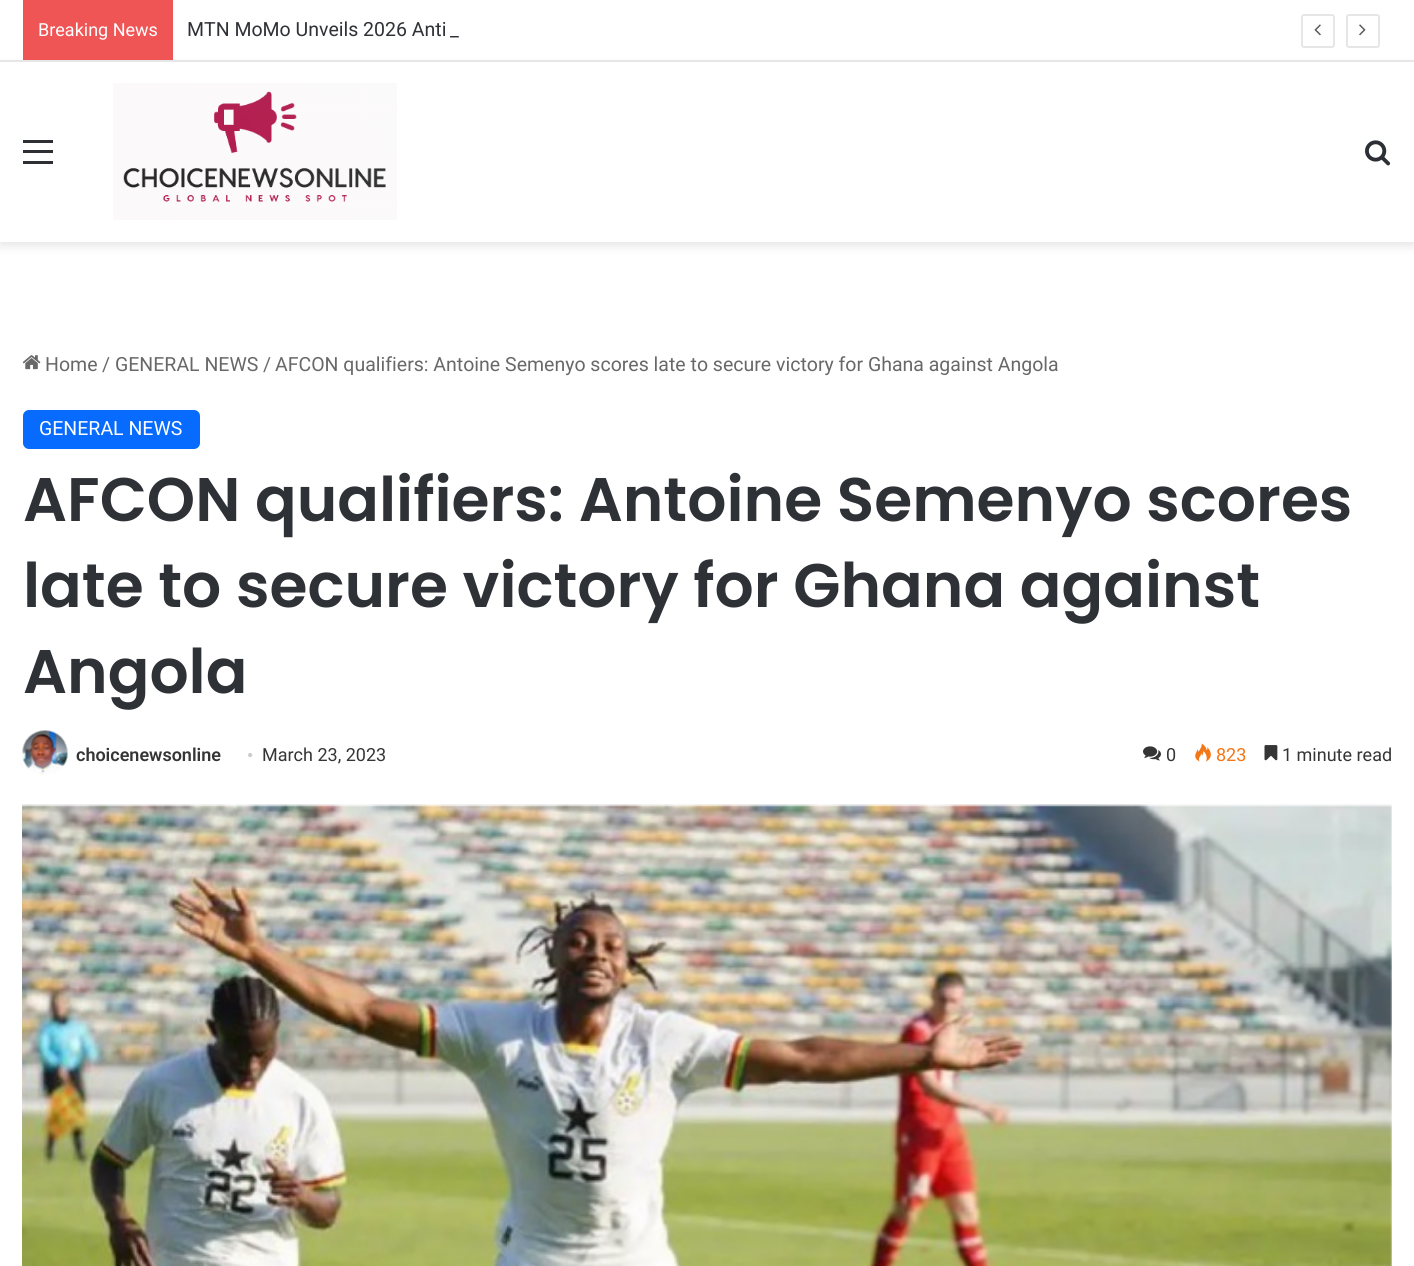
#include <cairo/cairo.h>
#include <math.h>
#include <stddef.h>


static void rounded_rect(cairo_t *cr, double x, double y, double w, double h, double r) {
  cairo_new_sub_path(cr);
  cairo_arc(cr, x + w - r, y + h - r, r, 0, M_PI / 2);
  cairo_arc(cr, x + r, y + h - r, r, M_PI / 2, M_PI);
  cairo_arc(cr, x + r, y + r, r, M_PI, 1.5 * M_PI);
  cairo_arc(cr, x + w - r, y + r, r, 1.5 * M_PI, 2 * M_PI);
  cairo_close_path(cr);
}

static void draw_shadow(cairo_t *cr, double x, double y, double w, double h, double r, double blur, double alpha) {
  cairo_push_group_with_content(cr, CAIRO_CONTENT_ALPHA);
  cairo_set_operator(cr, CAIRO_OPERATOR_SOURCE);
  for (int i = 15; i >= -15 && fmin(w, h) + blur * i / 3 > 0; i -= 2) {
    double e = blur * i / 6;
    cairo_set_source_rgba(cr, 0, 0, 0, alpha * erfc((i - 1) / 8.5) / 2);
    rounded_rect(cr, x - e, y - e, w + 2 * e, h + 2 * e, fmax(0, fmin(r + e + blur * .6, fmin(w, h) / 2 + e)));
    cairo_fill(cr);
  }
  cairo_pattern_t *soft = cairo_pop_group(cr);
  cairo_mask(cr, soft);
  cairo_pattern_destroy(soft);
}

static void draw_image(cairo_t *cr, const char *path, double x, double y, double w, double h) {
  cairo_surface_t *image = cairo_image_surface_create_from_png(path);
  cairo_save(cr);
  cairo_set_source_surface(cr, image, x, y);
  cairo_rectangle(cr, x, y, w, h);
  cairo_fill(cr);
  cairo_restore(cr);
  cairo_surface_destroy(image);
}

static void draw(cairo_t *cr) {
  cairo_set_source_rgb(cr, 1, 1, 1);
  cairo_paint(cr);
  cairo_set_source_rgb(cr, 0, 0, 0);
  draw_shadow(cr, 0, 66, 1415, 180, 0, 5, 0.1);
  cairo_set_source_rgb(cr, 230 / 255.0, 230 / 255.0, 230 / 255.0);
  cairo_rectangle(cr, 0, 60, 1414, 2);
  cairo_fill(cr);
  cairo_set_source_rgb(cr, 240 / 255.0, 85 / 255.0, 85 / 255.0);
  cairo_rectangle(cr, 23, 0, 150, 60);
  cairo_fill(cr);
  rounded_rect(cr, 1302, 15, 32, 32, 2);
  cairo_set_source_rgb(cr, 230 / 255.0, 230 / 255.0, 230 / 255.0);
  cairo_stroke(cr);
  draw_image(cr, "images/1.png", 1314, 24, 7, 12);
  rounded_rect(cr, 1347, 15, 32, 32, 2);
  cairo_stroke(cr);
  draw_image(cr, "images/2.png", 1359, 24, 7, 12);
  cairo_set_source_rgb(cr, 1, 1, 1);
  cairo_rectangle(cr, 0, 62, 1414, 180);
  cairo_fill(cr);
  cairo_set_source_rgb(cr, 44 / 255.0, 47 / 255.0, 52 / 255.0);
  cairo_rectangle(cr, 23, 150, 30, 3);
  cairo_fill(cr);
  cairo_rectangle(cr, 23, 140, 30, 3);
  cairo_fill(cr);
  cairo_rectangle(cr, 23, 161, 30, 3);
  cairo_fill(cr);
  draw_image(cr, "images/3.png", 113, 83, 284, 137);
  draw_image(cr, "images/4.png", 1365, 140, 26, 26);
  draw_image(cr, "images/5.png", 22, 355, 19, 15);
  cairo_set_source_rgb(cr, 8 / 255.0, 107 / 255.0, 1);
  rounded_rect(cr, 23, 410, 177, 39, 6);
  cairo_fill(cr);
  draw_image(cr, "images/6.png", 22, 730, 46, 46);
  draw_image(cr, "images/7.png", 1143, 746, 18, 15);
  draw_image(cr, "images/8.png", 1195, 743, 16, 19);
  draw_image(cr, "images/9.png", 1264, 745, 14, 16);
  draw_image(cr, "images/10.png", 22, 804, 1370, 462);
  cairo_select_font_face(cr, "Roboto", CAIRO_FONT_SLANT_NORMAL, CAIRO_FONT_WEIGHT_NORMAL);
  cairo_set_font_size(cr, 18);
  cairo_set_source_rgb(cr, 1, 1, 1);
  cairo_move_to(cr, 38, 36);
  cairo_show_text(cr, "Breaking News");
  cairo_set_font_size(cr, 19.5);
  cairo_set_source_rgb(cr, 46 / 255.0, 49 / 255.0, 54 / 255.0);
  cairo_move_to(cr, 187, 36);
  cairo_show_text(cr, "MTN MoMo Unveils 2026 Anti");
  cairo_move_to(cr, 450, 36);
  cairo_show_text(cr, "_");
  cairo_set_source_rgb(cr, 104 / 255.0, 104 / 255.0, 104 / 255.0);
  cairo_move_to(cr, 45, 371);
  cairo_show_text(cr, "Home");
  cairo_move_to(cr, 102, 371);
  cairo_show_text(cr, "/");
  cairo_move_to(cr, 115, 371);
  cairo_show_text(cr, "GENERAL NEWS");
  cairo_move_to(cr, 263, 371);
  cairo_show_text(cr, "/");
  cairo_move_to(cr, 275, 371);
  cairo_show_text(cr, "AFCON qualifiers: Antoine Semenyo scores late to secure victory for Ghana against Angola");
  cairo_set_source_rgb(cr, 1, 1, 1);
  cairo_move_to(cr, 39, 435);
  cairo_show_text(cr, "GENERAL NEWS");
  cairo_select_font_face(cr, "Poppins SemiBold", CAIRO_FONT_SLANT_NORMAL, CAIRO_FONT_WEIGHT_NORMAL);
  cairo_set_font_size(cr, 61.5);
  cairo_set_source_rgb(cr, 46 / 255.0, 49 / 255.0, 54 / 255.0);
  cairo_move_to(cr, 23, 521);
  cairo_show_text(cr, "AFCON qualifiers: Antoine Semenyo scores");
  cairo_move_to(cr, 23, 607);
  cairo_show_text(cr, "late to secure victory for Ghana against");
  cairo_move_to(cr, 23, 693);
  cairo_show_text(cr, "Angola");
  cairo_select_font_face(cr, "Roboto SemiBold", CAIRO_FONT_SLANT_NORMAL, CAIRO_FONT_WEIGHT_NORMAL);
  cairo_set_font_size(cr, 18);
  cairo_set_source_rgb(cr, 53 / 255.0, 53 / 255.0, 53 / 255.0);
  cairo_move_to(cr, 76, 761);
  cairo_show_text(cr, "choicenewsonline");
  cairo_select_font_face(cr, "Liberation Serif", CAIRO_FONT_SLANT_NORMAL, CAIRO_FONT_WEIGHT_NORMAL);
  cairo_set_source_rgb(cr, 205 / 255.0, 205 / 255.0, 205 / 255.0);
  cairo_move_to(cr, 247, 761);
  cairo_show_text(cr, "•");
  cairo_select_font_face(cr, "Roboto", CAIRO_FONT_SLANT_NORMAL, CAIRO_FONT_WEIGHT_NORMAL);
  cairo_set_source_rgb(cr, 53 / 255.0, 53 / 255.0, 53 / 255.0);
  cairo_move_to(cr, 262, 761);
  cairo_show_text(cr, "March 23, 2023");
  cairo_move_to(cr, 1166, 761);
  cairo_show_text(cr, "0");
  cairo_set_source_rgb(cr, 244 / 255.0, 118 / 255.0, 20 / 255.0);
  cairo_move_to(cr, 1216, 761);
  cairo_show_text(cr, "823");
  cairo_set_source_rgb(cr, 53 / 255.0, 53 / 255.0, 53 / 255.0);
  cairo_move_to(cr, 1282, 761);
  cairo_show_text(cr, "1 minute read");
}

int main(void) {
  cairo_surface_t *surface = cairo_image_surface_create(CAIRO_FORMAT_RGB24, 1414, 1266);
  cairo_t *cr = cairo_create(surface);
  cairo_font_options_t *options = cairo_font_options_create();
  cairo_font_options_set_hint_metrics(options, CAIRO_HINT_METRICS_OFF);
  cairo_font_options_set_hint_style(options, CAIRO_HINT_STYLE_NONE);
  cairo_set_font_options(cr, options);
  cairo_set_miter_limit(cr, 4);
  draw(cr);
  cairo_surface_write_to_png(surface, "out.png");
  cairo_font_options_destroy(options);
  cairo_destroy(cr);
  cairo_surface_destroy(surface);
  return 0;
}
